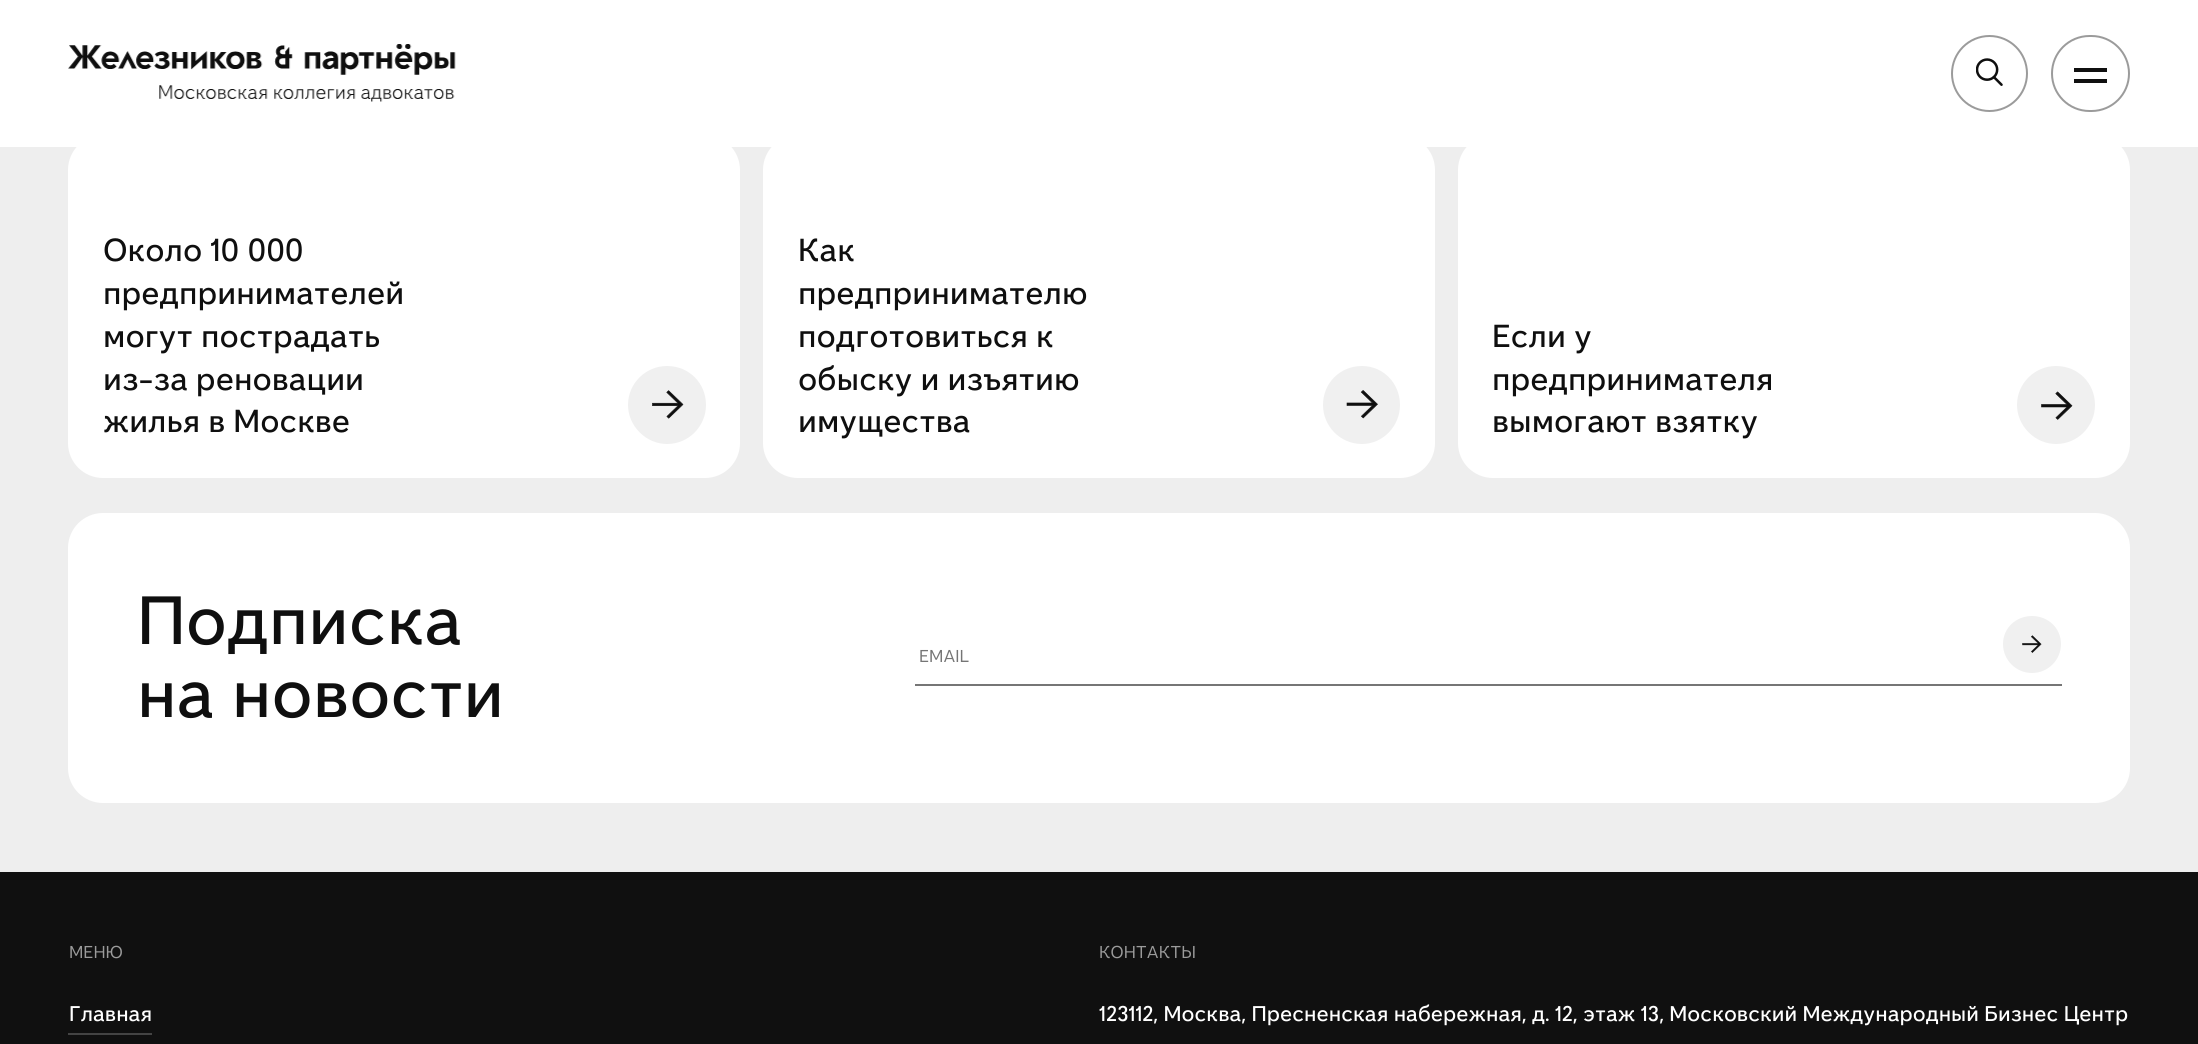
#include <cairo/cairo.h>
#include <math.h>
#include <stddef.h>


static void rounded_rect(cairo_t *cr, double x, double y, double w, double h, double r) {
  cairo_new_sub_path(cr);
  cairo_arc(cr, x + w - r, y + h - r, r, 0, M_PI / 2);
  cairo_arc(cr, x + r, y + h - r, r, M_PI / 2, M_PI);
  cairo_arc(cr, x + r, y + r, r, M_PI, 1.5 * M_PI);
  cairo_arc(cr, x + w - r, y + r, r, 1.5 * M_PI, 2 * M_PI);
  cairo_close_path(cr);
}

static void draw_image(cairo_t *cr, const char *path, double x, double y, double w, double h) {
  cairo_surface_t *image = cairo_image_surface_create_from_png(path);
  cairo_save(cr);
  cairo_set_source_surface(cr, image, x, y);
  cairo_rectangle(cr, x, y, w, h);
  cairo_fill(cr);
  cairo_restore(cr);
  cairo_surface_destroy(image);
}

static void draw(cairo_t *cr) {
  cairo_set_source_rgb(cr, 238 / 255.0, 238 / 255.0, 238 / 255.0);
  cairo_paint(cr);
  cairo_set_source_rgb(cr, 1, 1, 1);
  rounded_rect(cr, 68, 135, 672, 343, 35);
  cairo_fill(cr);
  rounded_rect(cr, 763, 135, 672, 343, 35);
  cairo_fill(cr);
  rounded_rect(cr, 1458, 135, 672, 343, 35);
  cairo_fill(cr);
  cairo_rectangle(cr, 0, 0, 2198, 147);
  cairo_fill(cr);
  draw_image(cr, "images/1.png", 68, 44, 388, 58);
  cairo_arc(cr, 1989.5, 73.5, 37.5, 0, 2 * M_PI);
  cairo_set_source_rgb(cr, 155 / 255.0, 155 / 255.0, 155 / 255.0);
  cairo_stroke(cr);
  draw_image(cr, "images/2.png", 1976, 58, 27, 28);
  rounded_rect(cr, 2052, 36, 77, 75, 37.5);
  cairo_stroke(cr);
  cairo_set_source_rgb(cr, 16 / 255.0, 16 / 255.0, 16 / 255.0);
  cairo_rectangle(cr, 2074, 68, 33, 4);
  cairo_fill(cr);
  cairo_rectangle(cr, 2074, 79, 33, 4);
  cairo_fill(cr);
  cairo_set_source_rgb(cr, 240 / 255.0, 240 / 255.0, 240 / 255.0);
  cairo_new_path(cr);
  cairo_move_to(cr, 628, 405);
  cairo_curve_to(cr, 628, 383, 646, 366, 667, 366);
  cairo_curve_to(cr, 689, 366, 706, 383, 706, 405);
  cairo_curve_to(cr, 706, 426, 689, 444, 667, 444);
  cairo_curve_to(cr, 646, 444, 628, 426, 628, 405);
  cairo_close_path(cr);
  cairo_fill(cr);
  draw_image(cr, "images/3.png", 652, 390, 32, 29);
  cairo_new_path(cr);
  cairo_move_to(cr, 1323, 405);
  cairo_curve_to(cr, 1323, 383, 1340, 366, 1362, 366);
  cairo_curve_to(cr, 1383, 366, 1400, 383, 1400, 405);
  cairo_curve_to(cr, 1400, 426, 1383, 444, 1362, 444);
  cairo_curve_to(cr, 1340, 444, 1323, 426, 1323, 405);
  cairo_close_path(cr);
  cairo_fill(cr);
  draw_image(cr, "images/4.png", 1346, 390, 32, 29);
  cairo_new_path(cr);
  cairo_move_to(cr, 2017, 405);
  cairo_curve_to(cr, 2017, 383, 2035, 366, 2056, 366);
  cairo_curve_to(cr, 2078, 366, 2095, 383, 2095, 405);
  cairo_curve_to(cr, 2095, 426, 2078, 444, 2056, 444);
  cairo_curve_to(cr, 2035, 444, 2017, 426, 2017, 405);
  cairo_close_path(cr);
  cairo_fill(cr);
  draw_image(cr, "images/5.png", 2041, 391, 32, 29);
  cairo_set_source_rgb(cr, 1, 1, 1);
  rounded_rect(cr, 68, 513, 2062, 290, 35);
  cairo_fill(cr);
  cairo_set_source_rgb(cr, 118 / 255.0, 118 / 255.0, 118 / 255.0);
  cairo_rectangle(cr, 915, 684, 1147, 2);
  cairo_fill(cr);
  cairo_set_source_rgb(cr, 240 / 255.0, 240 / 255.0, 240 / 255.0);
  cairo_new_path(cr);
  cairo_move_to(cr, 2003, 644);
  cairo_curve_to(cr, 2003, 628, 2016, 616, 2032, 616);
  cairo_curve_to(cr, 2048, 616, 2061, 628, 2061, 644);
  cairo_curve_to(cr, 2061, 660, 2048, 673, 2032, 673);
  cairo_curve_to(cr, 2016, 673, 2003, 660, 2003, 644);
  cairo_close_path(cr);
  cairo_fill(cr);
  draw_image(cr, "images/6.png", 2022, 635, 20, 18);
  cairo_set_source_rgb(cr, 16 / 255.0, 16 / 255.0, 16 / 255.0);
  cairo_rectangle(cr, 0, 872, 2198, 172);
  cairo_fill(cr);
  cairo_set_source_rgb(cr, 68 / 255.0, 68 / 255.0, 68 / 255.0);
  cairo_rectangle(cr, 68, 1033, 84, 2);
  cairo_fill(cr);
  cairo_select_font_face(cr, "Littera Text", CAIRO_FONT_SLANT_NORMAL, CAIRO_FONT_WEIGHT_NORMAL);
  cairo_set_font_size(cr, 34.25);
  cairo_set_source_rgb(cr, 15 / 255.0, 15 / 255.0, 15 / 255.0);
  cairo_move_to(cr, 103, 261);
  cairo_show_text(cr, "Около 10 000");
  cairo_move_to(cr, 103, 304);
  cairo_show_text(cr, "предпринимателей");
  cairo_move_to(cr, 103, 347);
  cairo_show_text(cr, "могут пострадать");
  cairo_move_to(cr, 103, 390);
  cairo_show_text(cr, "из-за реновации");
  cairo_move_to(cr, 103, 432);
  cairo_show_text(cr, "жилья в Москве");
  cairo_move_to(cr, 798, 261);
  cairo_show_text(cr, "Как");
  cairo_move_to(cr, 798, 304);
  cairo_show_text(cr, "предпринимателю");
  cairo_move_to(cr, 798, 347);
  cairo_show_text(cr, "подготовиться к");
  cairo_move_to(cr, 798, 390);
  cairo_show_text(cr, "обыску и изъятию");
  cairo_move_to(cr, 798, 432);
  cairo_show_text(cr, "имущества");
  cairo_move_to(cr, 1492, 347);
  cairo_show_text(cr, "Если у");
  cairo_move_to(cr, 1492, 390);
  cairo_show_text(cr, "предпринимателя");
  cairo_move_to(cr, 1492, 432);
  cairo_show_text(cr, "вымогают взятку");
  cairo_set_font_size(cr, 73.25);
  cairo_move_to(cr, 137, 644);
  cairo_show_text(cr, "Подписка");
  cairo_move_to(cr, 137, 717);
  cairo_show_text(cr, "на новости");
  cairo_select_font_face(cr, "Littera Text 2", CAIRO_FONT_SLANT_NORMAL, CAIRO_FONT_WEIGHT_NORMAL);
  cairo_set_font_size(cr, 18.5);
  cairo_set_source_rgb(cr, 117 / 255.0, 117 / 255.0, 117 / 255.0);
  cairo_move_to(cr, 919, 662);
  cairo_show_text(cr, "EMAIL");
  cairo_set_source_rgb(cr, 155 / 255.0, 155 / 255.0, 155 / 255.0);
  cairo_move_to(cr, 69, 958);
  cairo_show_text(cr, "МЕНЮ");
  cairo_select_font_face(cr, "Littera Text", CAIRO_FONT_SLANT_NORMAL, CAIRO_FONT_WEIGHT_NORMAL);
  cairo_set_font_size(cr, 22.9);
  cairo_set_source_rgb(cr, 1, 1, 1);
  cairo_move_to(cr, 69, 1021);
  cairo_show_text(cr, "Главная");
  cairo_select_font_face(cr, "Littera Text 2", CAIRO_FONT_SLANT_NORMAL, CAIRO_FONT_WEIGHT_NORMAL);
  cairo_set_font_size(cr, 18.5);
  cairo_set_source_rgb(cr, 155 / 255.0, 155 / 255.0, 155 / 255.0);
  cairo_move_to(cr, 1099, 958);
  cairo_show_text(cr, "КОНТАКТЫ");
  cairo_select_font_face(cr, "Littera Text", CAIRO_FONT_SLANT_NORMAL, CAIRO_FONT_WEIGHT_NORMAL);
  cairo_set_font_size(cr, 22.9);
  cairo_set_source_rgb(cr, 1, 1, 1);
  cairo_move_to(cr, 1099, 1021);
  cairo_show_text(cr, "123112, Моcква, Пресненская набережная, д. 12, этаж 13, Московский Международный Бизнес Центр");
}

int main(void) {
  cairo_surface_t *surface = cairo_image_surface_create(CAIRO_FORMAT_RGB24, 2198, 1044);
  cairo_t *cr = cairo_create(surface);
  cairo_font_options_t *options = cairo_font_options_create();
  cairo_font_options_set_hint_metrics(options, CAIRO_HINT_METRICS_OFF);
  cairo_font_options_set_hint_style(options, CAIRO_HINT_STYLE_NONE);
  cairo_set_font_options(cr, options);
  cairo_set_miter_limit(cr, 4);
  draw(cr);
  cairo_surface_write_to_png(surface, "out.png");
  cairo_font_options_destroy(options);
  cairo_destroy(cr);
  cairo_surface_destroy(surface);
  return 0;
}
